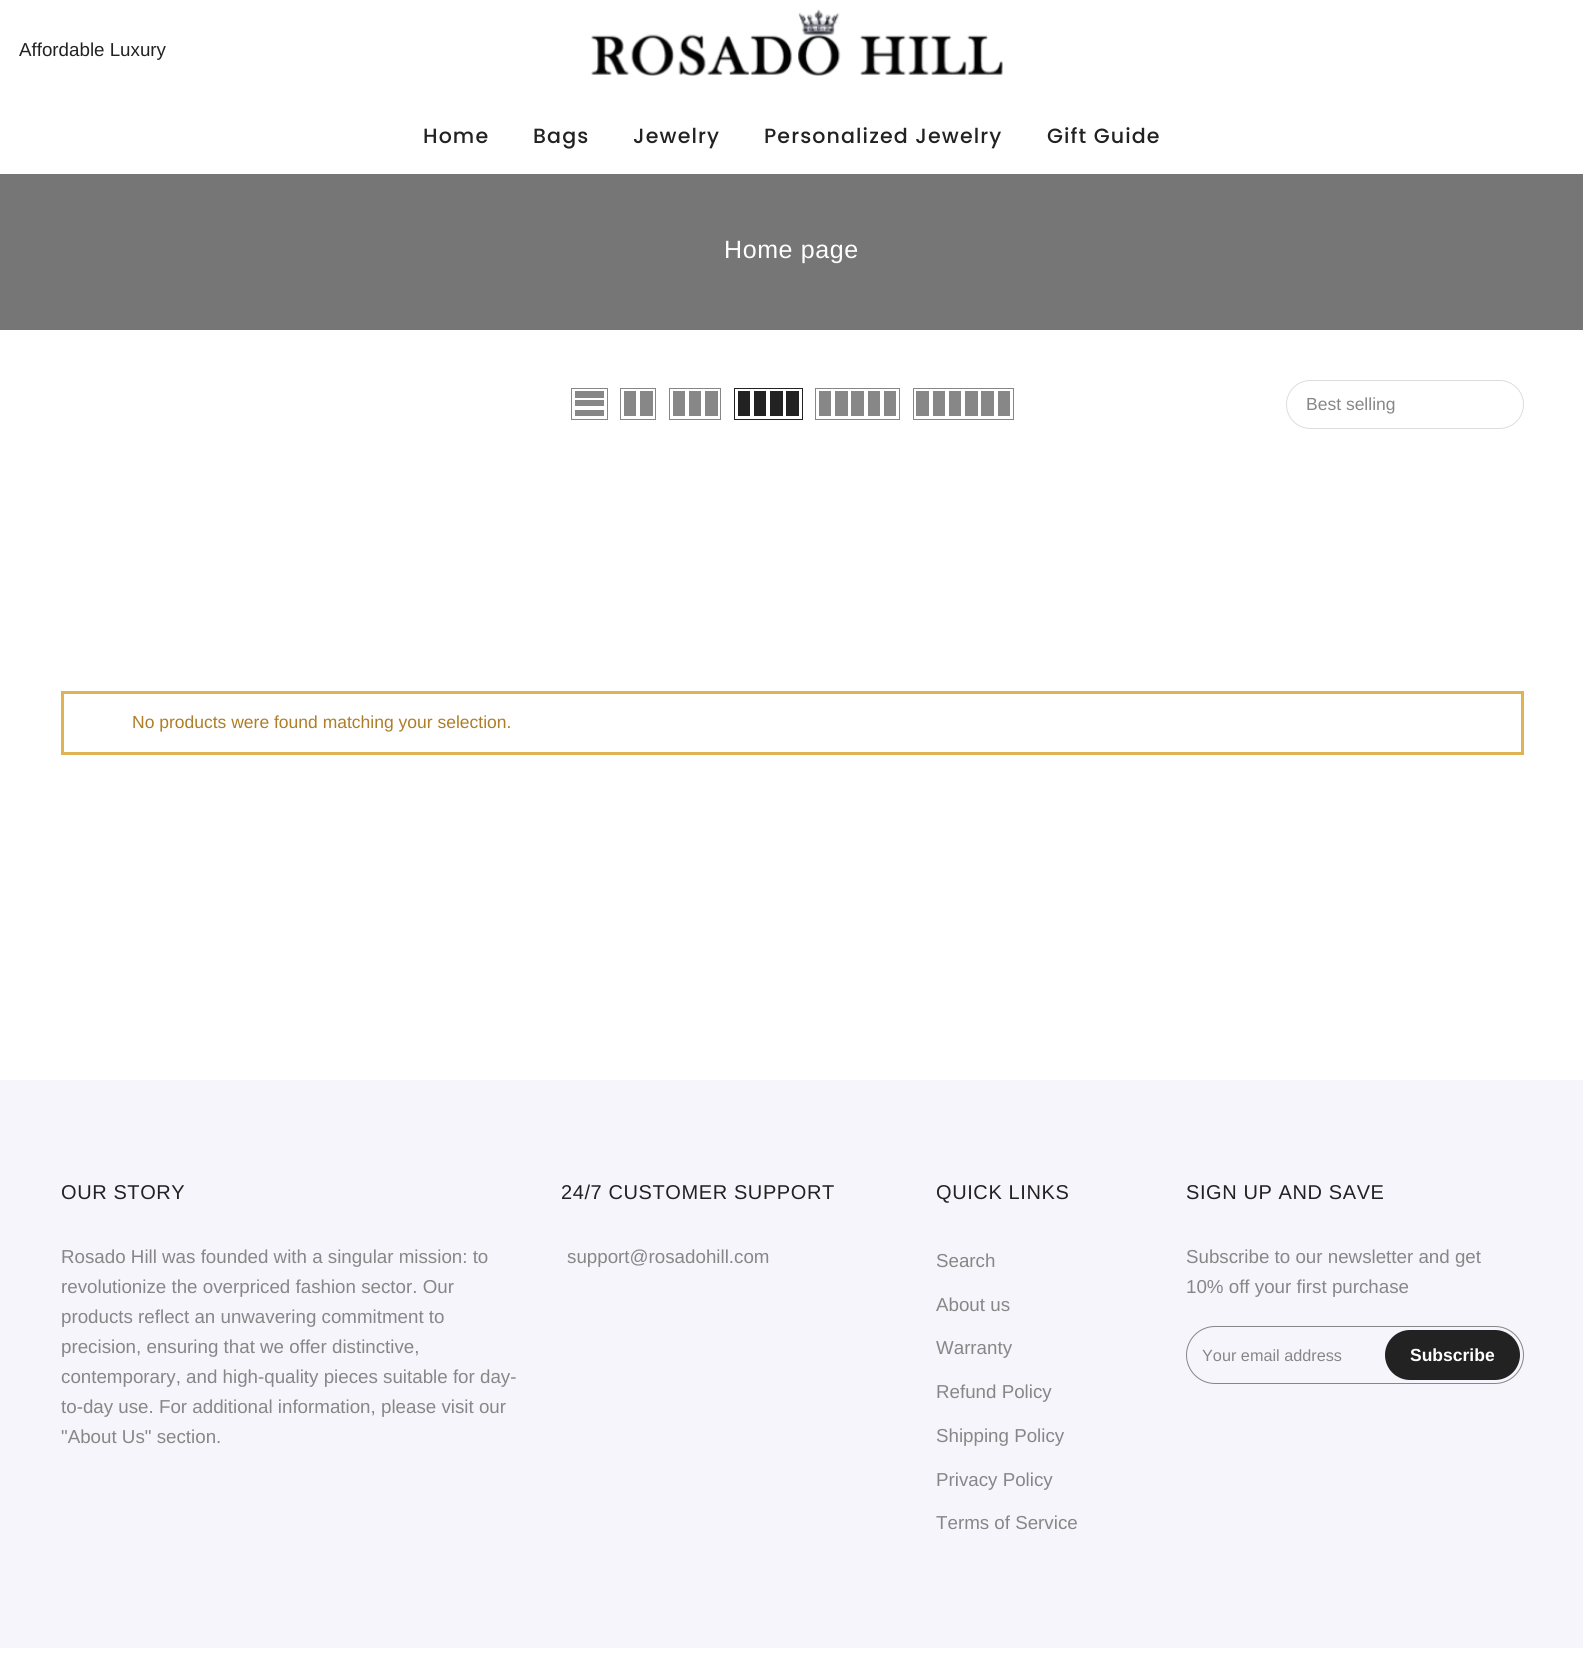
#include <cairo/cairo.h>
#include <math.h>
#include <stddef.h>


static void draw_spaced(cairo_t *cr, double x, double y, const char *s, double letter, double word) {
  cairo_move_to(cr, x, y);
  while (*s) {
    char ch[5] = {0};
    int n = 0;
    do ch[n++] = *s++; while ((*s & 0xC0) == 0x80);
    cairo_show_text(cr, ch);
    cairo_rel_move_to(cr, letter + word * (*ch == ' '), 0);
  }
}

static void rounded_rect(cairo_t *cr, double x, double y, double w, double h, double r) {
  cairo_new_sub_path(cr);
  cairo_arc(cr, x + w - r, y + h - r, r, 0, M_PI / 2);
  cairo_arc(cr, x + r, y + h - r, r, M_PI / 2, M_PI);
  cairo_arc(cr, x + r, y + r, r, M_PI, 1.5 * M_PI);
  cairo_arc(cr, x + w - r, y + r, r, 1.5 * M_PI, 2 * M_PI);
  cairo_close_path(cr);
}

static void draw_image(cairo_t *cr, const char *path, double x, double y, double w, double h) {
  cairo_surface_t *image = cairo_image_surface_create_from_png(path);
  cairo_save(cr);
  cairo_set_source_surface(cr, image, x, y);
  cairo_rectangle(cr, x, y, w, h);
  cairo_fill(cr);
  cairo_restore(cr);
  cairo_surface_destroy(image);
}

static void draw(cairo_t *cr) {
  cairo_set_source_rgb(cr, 1, 1, 1);
  cairo_paint(cr);
  draw_image(cr, "images/1.png", 591, 9, 412, 67);
  cairo_set_source_rgb(cr, 118 / 255.0, 118 / 255.0, 118 / 255.0);
  cairo_rectangle(cr, 0, 174, 1583, 156);
  cairo_fill(cr);
  cairo_rectangle(cr, 571.5, 388.5, 36, 31);
  cairo_set_source_rgb(cr, 135 / 255.0, 135 / 255.0, 135 / 255.0);
  cairo_set_line_width(cr, 1);
  cairo_stroke(cr);
  cairo_rectangle(cr, 575, 410, 29, 6);
  cairo_fill(cr);
  cairo_rectangle(cr, 575, 400, 29, 6);
  cairo_fill(cr);
  cairo_rectangle(cr, 575, 391, 29, 7);
  cairo_fill(cr);
  cairo_rectangle(cr, 620.5, 388.5, 35, 31);
  cairo_stroke(cr);
  cairo_rectangle(cr, 640, 391, 13, 25);
  cairo_fill(cr);
  cairo_rectangle(cr, 624, 391, 12, 25);
  cairo_fill(cr);
  cairo_rectangle(cr, 669.5, 388.5, 51, 31);
  cairo_stroke(cr);
  cairo_rectangle(cr, 705, 391, 13, 25);
  cairo_fill(cr);
  cairo_rectangle(cr, 689, 391, 12, 25);
  cairo_fill(cr);
  cairo_rectangle(cr, 673, 391, 12, 25);
  cairo_fill(cr);
  cairo_rectangle(cr, 734.5, 388.5, 68, 31);
  cairo_set_source_rgb(cr, 34 / 255.0, 34 / 255.0, 34 / 255.0);
  cairo_stroke(cr);
  cairo_rectangle(cr, 786, 391, 13, 25);
  cairo_fill(cr);
  cairo_rectangle(cr, 770, 391, 13, 25);
  cairo_fill(cr);
  cairo_rectangle(cr, 754, 391, 12, 25);
  cairo_fill(cr);
  cairo_rectangle(cr, 738, 391, 12, 25);
  cairo_fill(cr);
  cairo_rectangle(cr, 815.5, 388.5, 84, 31);
  cairo_set_source_rgb(cr, 135 / 255.0, 135 / 255.0, 135 / 255.0);
  cairo_stroke(cr);
  cairo_rectangle(cr, 884, 391, 12, 25);
  cairo_fill(cr);
  cairo_rectangle(cr, 868, 391, 12, 25);
  cairo_fill(cr);
  cairo_rectangle(cr, 851, 391, 13, 25);
  cairo_fill(cr);
  cairo_rectangle(cr, 835, 391, 13, 25);
  cairo_fill(cr);
  cairo_rectangle(cr, 819, 391, 12, 25);
  cairo_fill(cr);
  cairo_rectangle(cr, 913.5, 388.5, 100, 31);
  cairo_stroke(cr);
  cairo_rectangle(cr, 998, 391, 12, 25);
  cairo_fill(cr);
  cairo_rectangle(cr, 981, 391, 13, 25);
  cairo_fill(cr);
  cairo_rectangle(cr, 965, 391, 13, 25);
  cairo_fill(cr);
  cairo_rectangle(cr, 949, 391, 12, 25);
  cairo_fill(cr);
  cairo_rectangle(cr, 933, 391, 12, 25);
  cairo_fill(cr);
  cairo_rectangle(cr, 916, 391, 13, 25);
  cairo_fill(cr);
  rounded_rect(cr, 1286.5, 380.5, 237, 48, 24);
  cairo_set_source_rgb(cr, 221 / 255.0, 221 / 255.0, 221 / 255.0);
  cairo_stroke(cr);
  cairo_rectangle(cr, 62.5, 692.5, 1460, 61);
  cairo_set_source_rgb(cr, 224 / 255.0, 178 / 255.0, 82 / 255.0);
  cairo_set_line_width(cr, 3);
  cairo_stroke(cr);
  cairo_set_source_rgb(cr, 245 / 255.0, 245 / 255.0, 251 / 255.0);
  cairo_rectangle(cr, 0, 1080, 1583, 568);
  cairo_fill(cr);
  rounded_rect(cr, 1186.5, 1326.5, 337, 57, 28.5);
  cairo_set_source_rgb(cr, 135 / 255.0, 135 / 255.0, 135 / 255.0);
  cairo_set_line_width(cr, 1);
  cairo_stroke(cr);
  cairo_set_source_rgb(cr, 34 / 255.0, 34 / 255.0, 34 / 255.0);
  rounded_rect(cr, 1385, 1330, 135, 50, 25);
  cairo_fill(cr);
  cairo_select_font_face(cr, "Liberation Sans", CAIRO_FONT_SLANT_NORMAL, CAIRO_FONT_WEIGHT_NORMAL);
  cairo_set_font_size(cr, 18.75);
  cairo_move_to(cr, 19, 56);
  cairo_show_text(cr, "Affordable Luxury");
  cairo_select_font_face(cr, "Poppins Medium", CAIRO_FONT_SLANT_NORMAL, CAIRO_FONT_WEIGHT_NORMAL);
  cairo_set_font_size(cr, 20.6);
  draw_spaced(cr, 423, 143, "Home", 1.1, 0);
  draw_spaced(cr, 533, 143, "Bags", 1.1, 0);
  draw_spaced(cr, 633, 143, "Jewelry", 1.1, 0);
  draw_spaced(cr, 764, 143, "Personalized Jewelry", 1.1, 0);
  draw_spaced(cr, 1047, 143, "Gift Guide", 1.1, 0);
  cairo_select_font_face(cr, "Liberation Sans", CAIRO_FONT_SLANT_NORMAL, CAIRO_FONT_WEIGHT_NORMAL);
  cairo_set_font_size(cr, 25);
  cairo_set_source_rgb(cr, 1, 1, 1);
  draw_spaced(cr, 724, 258, "Home page", 0.6, 0);
  cairo_set_font_size(cr, 17.5);
  cairo_set_source_rgb(cr, 135 / 255.0, 135 / 255.0, 135 / 255.0);
  cairo_move_to(cr, 1306, 410);
  cairo_show_text(cr, "Best selling");
  cairo_set_source_rgb(cr, 175 / 255.0, 125 / 255.0, 39 / 255.0);
  cairo_move_to(cr, 132, 728);
  cairo_show_text(cr, "No products were found matching your selection.");
  cairo_set_font_size(cr, 20);
  cairo_set_source_rgb(cr, 34 / 255.0, 34 / 255.0, 34 / 255.0);
  draw_spaced(cr, 61, 1199, "OUR STORY", 0.6, 0);
  cairo_set_font_size(cr, 18.75);
  cairo_set_source_rgb(cr, 135 / 255.0, 135 / 255.0, 135 / 255.0);
  cairo_move_to(cr, 61, 1263);
  cairo_show_text(cr, "Rosado Hill was founded with a singular mission: to");
  cairo_move_to(cr, 61, 1293);
  cairo_show_text(cr, "revolutionize the overpriced fashion sector. Our");
  cairo_move_to(cr, 61, 1323);
  cairo_show_text(cr, "products reflect an unwavering commitment to");
  cairo_move_to(cr, 61, 1353);
  cairo_show_text(cr, "precision, ensuring that we offer distinctive,");
  cairo_move_to(cr, 61, 1383);
  cairo_show_text(cr, "contemporary, and high-quality pieces suitable for day-");
  cairo_move_to(cr, 61, 1413);
  cairo_show_text(cr, "to-day use. For additional information, please visit our");
  cairo_move_to(cr, 61, 1443);
  cairo_show_text(cr, "\"About Us\" section.");
  cairo_set_font_size(cr, 20);
  cairo_set_source_rgb(cr, 34 / 255.0, 34 / 255.0, 34 / 255.0);
  draw_spaced(cr, 561, 1199, "24/7 CUSTOMER SUPPORT", 0.6, 0);
  cairo_set_font_size(cr, 18.75);
  cairo_set_source_rgb(cr, 135 / 255.0, 135 / 255.0, 135 / 255.0);
  cairo_move_to(cr, 567, 1263);
  cairo_show_text(cr, "support@rosadohill.com");
  cairo_set_font_size(cr, 20);
  cairo_set_source_rgb(cr, 34 / 255.0, 34 / 255.0, 34 / 255.0);
  draw_spaced(cr, 936, 1199, "QUICK LINKS", 0.6, 0);
  cairo_set_font_size(cr, 18.75);
  cairo_set_source_rgb(cr, 135 / 255.0, 135 / 255.0, 135 / 255.0);
  cairo_move_to(cr, 936, 1267);
  cairo_show_text(cr, "Search");
  cairo_move_to(cr, 936, 1311);
  cairo_show_text(cr, "About us");
  cairo_move_to(cr, 936, 1354);
  cairo_show_text(cr, "Warranty");
  cairo_move_to(cr, 936, 1398);
  cairo_show_text(cr, "Refund Policy");
  cairo_move_to(cr, 936, 1442);
  cairo_show_text(cr, "Shipping Policy");
  cairo_move_to(cr, 936, 1486);
  cairo_show_text(cr, "Privacy Policy");
  cairo_move_to(cr, 936, 1529);
  cairo_show_text(cr, "Terms of Service");
  cairo_set_font_size(cr, 20);
  cairo_set_source_rgb(cr, 34 / 255.0, 34 / 255.0, 34 / 255.0);
  draw_spaced(cr, 1186, 1199, "SIGN UP AND SAVE", 0.6, 0);
  cairo_set_font_size(cr, 18.75);
  cairo_set_source_rgb(cr, 135 / 255.0, 135 / 255.0, 135 / 255.0);
  cairo_move_to(cr, 1186, 1263);
  cairo_show_text(cr, "Subscribe to our newsletter and get");
  cairo_move_to(cr, 1186, 1293);
  cairo_show_text(cr, "10% off your first purchase");
  cairo_set_font_size(cr, 16.25);
  cairo_move_to(cr, 1202, 1361);
  cairo_show_text(cr, "Your email address");
  cairo_select_font_face(cr, "Liberation Sans", CAIRO_FONT_SLANT_NORMAL, CAIRO_FONT_WEIGHT_BOLD);
  cairo_set_font_size(cr, 17.5);
  cairo_set_source_rgb(cr, 1, 1, 1);
  cairo_move_to(cr, 1410, 1361);
  cairo_show_text(cr, "Subscribe");
}

int main(void) {
  cairo_surface_t *surface = cairo_image_surface_create(CAIRO_FORMAT_RGB24, 1583, 1674);
  cairo_t *cr = cairo_create(surface);
  cairo_font_options_t *options = cairo_font_options_create();
  cairo_font_options_set_hint_metrics(options, CAIRO_HINT_METRICS_OFF);
  cairo_font_options_set_hint_style(options, CAIRO_HINT_STYLE_NONE);
  cairo_set_font_options(cr, options);
  cairo_set_miter_limit(cr, 4);
  draw(cr);
  cairo_surface_write_to_png(surface, "out.png");
  cairo_font_options_destroy(options);
  cairo_destroy(cr);
  cairo_surface_destroy(surface);
  return 0;
}
